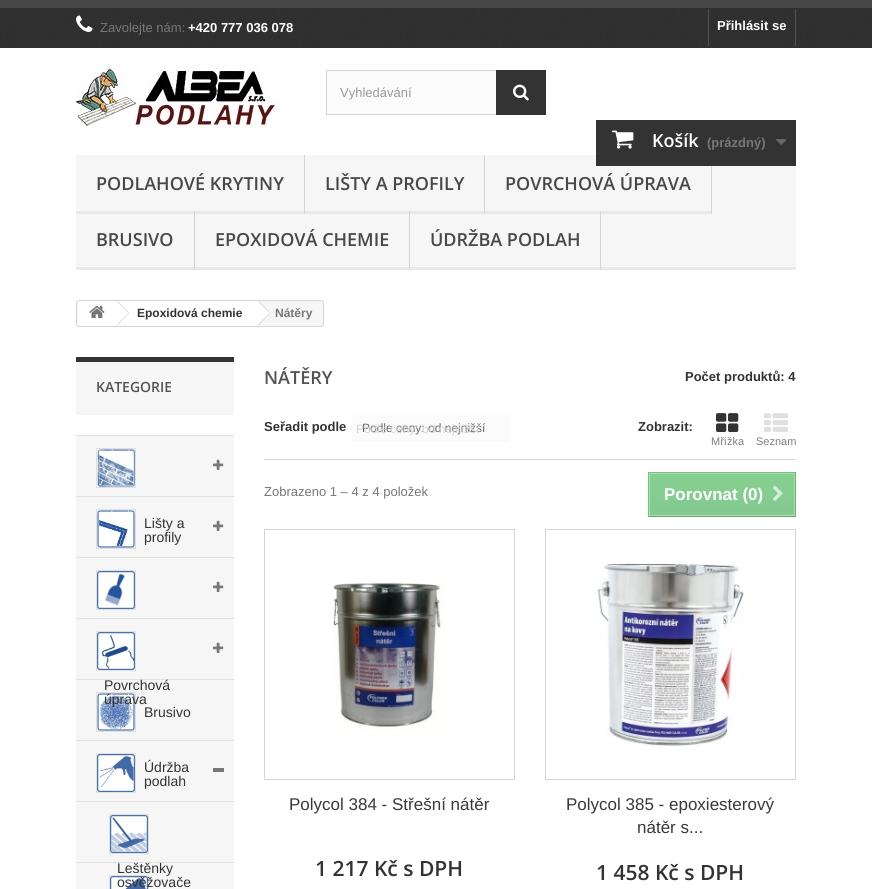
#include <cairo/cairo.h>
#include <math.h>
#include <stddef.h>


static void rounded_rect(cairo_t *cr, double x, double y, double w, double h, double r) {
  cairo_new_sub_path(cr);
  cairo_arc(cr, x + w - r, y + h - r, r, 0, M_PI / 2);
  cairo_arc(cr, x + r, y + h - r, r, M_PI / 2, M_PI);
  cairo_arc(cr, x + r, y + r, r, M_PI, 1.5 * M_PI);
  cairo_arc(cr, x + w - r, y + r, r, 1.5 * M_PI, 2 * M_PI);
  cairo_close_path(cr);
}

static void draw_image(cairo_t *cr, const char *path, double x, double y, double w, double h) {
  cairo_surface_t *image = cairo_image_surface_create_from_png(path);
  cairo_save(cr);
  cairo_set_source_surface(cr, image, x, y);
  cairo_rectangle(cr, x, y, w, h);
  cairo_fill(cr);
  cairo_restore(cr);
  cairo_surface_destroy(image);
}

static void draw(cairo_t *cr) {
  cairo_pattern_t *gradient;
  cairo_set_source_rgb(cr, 1, 1, 1);
  cairo_paint(cr);
  draw_image(cr, "images/1.png", 0, 0, 872, 48);
  draw_image(cr, "images/2.png", 76, 15, 17, 17);
  cairo_set_source_rgb(cr, 81 / 255.0, 81 / 255.0, 81 / 255.0);
  cairo_rectangle(cr, 795, 9, 1, 37);
  cairo_fill(cr);
  cairo_rectangle(cr, 708, 9, 1, 37);
  cairo_fill(cr);
  draw_image(cr, "images/3.png", 76, 65, 202, 64);
  cairo_set_source_rgb(cr, 251 / 255.0, 251 / 255.0, 251 / 255.0);
  cairo_rectangle(cr, 327, 71, 169, 43);
  cairo_fill(cr);
  cairo_rectangle(cr, 326.5, 70.5, 219, 44);
  cairo_set_source_rgb(cr, 214 / 255.0, 212 / 255.0, 212 / 255.0);
  cairo_set_line_width(cr, 1);
  cairo_stroke(cr);
  cairo_set_source_rgb(cr, 51 / 255.0, 51 / 255.0, 51 / 255.0);
  cairo_rectangle(cr, 496, 70, 50, 45);
  cairo_fill(cr);
  draw_image(cr, "images/4.png", 513, 84, 16, 17);
  cairo_set_source_rgb(cr, 246 / 255.0, 246 / 255.0, 246 / 255.0);
  cairo_rectangle(cr, 76, 155, 720, 112);
  cairo_fill(cr);
  cairo_set_source_rgb(cr, 51 / 255.0, 51 / 255.0, 51 / 255.0);
  cairo_rectangle(cr, 596, 120, 200, 46);
  cairo_fill(cr);
  draw_image(cr, "images/5.png", 612, 130, 22, 19);
  draw_image(cr, "images/6.png", 776, 139, 11, 6);
  cairo_set_source_rgb(cr, 233 / 255.0, 233 / 255.0, 233 / 255.0);
  cairo_rectangle(cr, 76, 267, 720, 3);
  cairo_fill(cr);
  cairo_set_source_rgb(cr, 214 / 255.0, 212 / 255.0, 212 / 255.0);
  cairo_rectangle(cr, 304, 155, 1, 59);
  cairo_fill(cr);
  cairo_set_source_rgb(cr, 233 / 255.0, 233 / 255.0, 233 / 255.0);
  cairo_rectangle(cr, 76, 211, 228, 3);
  cairo_fill(cr);
  cairo_set_source_rgb(cr, 214 / 255.0, 212 / 255.0, 212 / 255.0);
  cairo_rectangle(cr, 484, 155, 1, 59);
  cairo_fill(cr);
  cairo_set_source_rgb(cr, 233 / 255.0, 233 / 255.0, 233 / 255.0);
  cairo_rectangle(cr, 305, 211, 179, 3);
  cairo_fill(cr);
  cairo_set_source_rgb(cr, 214 / 255.0, 212 / 255.0, 212 / 255.0);
  cairo_rectangle(cr, 711, 166, 1, 48);
  cairo_fill(cr);
  cairo_set_source_rgb(cr, 233 / 255.0, 233 / 255.0, 233 / 255.0);
  cairo_rectangle(cr, 485, 211, 226, 3);
  cairo_fill(cr);
  cairo_set_source_rgb(cr, 214 / 255.0, 212 / 255.0, 212 / 255.0);
  cairo_rectangle(cr, 194, 211, 1, 59);
  cairo_fill(cr);
  cairo_rectangle(cr, 409, 211, 1, 59);
  cairo_fill(cr);
  cairo_rectangle(cr, 600, 211, 1, 59);
  cairo_fill(cr);
  cairo_set_source_rgb(cr, 246 / 255.0, 246 / 255.0, 246 / 255.0);
  rounded_rect(cr, 76.5, 300.5, 247, 26, 2.5);
  cairo_fill_preserve(cr);
  cairo_set_source_rgb(cr, 214 / 255.0, 212 / 255.0, 212 / 255.0);
  cairo_stroke(cr);
  cairo_set_source_rgb(cr, 1, 1, 1);
  cairo_new_path(cr);
  cairo_move_to(cr, 81, 301);
  cairo_line_to(cr, 116, 301);
  cairo_line_to(cr, 116, 326);
  cairo_line_to(cr, 81, 326);
  cairo_curve_to(cr, 79.5, 326, 78, 324.5, 78, 323);
  cairo_line_to(cr, 78, 304);
  cairo_curve_to(cr, 78, 302.5, 79.5, 301, 81, 301);
  cairo_close_path(cr);
  cairo_fill(cr);
  draw_image(cr, "images/7.png", 89, 305, 16, 13);
  cairo_rectangle(cr, 116, 301, 141, 24);
  cairo_fill(cr);
  cairo_set_source_rgb(cr, 214 / 255.0, 212 / 255.0, 212 / 255.0);
  cairo_new_path(cr);
  cairo_move_to(cr, 117.5, 301);
  cairo_line_to(cr, 129, 312.5);
  cairo_line_to(cr, 128.5, 313);
  cairo_line_to(cr, 117, 301.5);
  cairo_close_path(cr);
  cairo_move_to(cr, 128.5, 313);
  cairo_line_to(cr, 129, 313.5);
  cairo_line_to(cr, 117.5, 325);
  cairo_line_to(cr, 117, 324.5);
  cairo_close_path(cr);
  cairo_fill(cr);
  cairo_set_source_rgb(cr, 1, 1, 1);
  cairo_new_path(cr);
  cairo_move_to(cr, 259.5, 301.5);
  cairo_line_to(cr, 269.5, 311.5);
  cairo_curve_to(cr, 270, 312.5, 270, 313.5, 269.5, 314.5);
  cairo_line_to(cr, 259.5, 324.5);
  cairo_curve_to(cr, 258.5, 325, 257.5, 325, 256.5, 324.5);
  cairo_line_to(cr, 246.5, 314.5);
  cairo_curve_to(cr, 246, 313.5, 246, 312.5, 246.5, 311.5);
  cairo_line_to(cr, 256.5, 301.5);
  cairo_curve_to(cr, 257.5, 301, 258.5, 301, 259.5, 301.5);
  cairo_close_path(cr);
  cairo_fill(cr);
  cairo_set_source_rgb(cr, 214 / 255.0, 212 / 255.0, 212 / 255.0);
  cairo_new_path(cr);
  cairo_move_to(cr, 259, 301);
  cairo_line_to(cr, 270, 312.5);
  cairo_line_to(cr, 269.5, 313);
  cairo_line_to(cr, 258, 301.5);
  cairo_close_path(cr);
  cairo_move_to(cr, 269.5, 313);
  cairo_line_to(cr, 270, 313.5);
  cairo_line_to(cr, 259, 325);
  cairo_line_to(cr, 258, 324.5);
  cairo_close_path(cr);
  cairo_fill(cr);
  cairo_set_source_rgb(cr, 246 / 255.0, 246 / 255.0, 246 / 255.0);
  cairo_rectangle(cr, 76, 362, 158, 53);
  cairo_fill(cr);
  cairo_set_source_rgb(cr, 51 / 255.0, 51 / 255.0, 51 / 255.0);
  cairo_rectangle(cr, 76, 357, 158, 5);
  cairo_fill(cr);
  cairo_set_source_rgb(cr, 245 / 255.0, 246 / 255.0, 245 / 255.0);
  cairo_rectangle(cr, 76, 436, 158, 60);
  cairo_fill(cr);
  cairo_set_source_rgb(cr, 224 / 255.0, 224 / 255.0, 224 / 255.0);
  cairo_rectangle(cr, 76, 435, 158, 1);
  cairo_fill(cr);
  cairo_rectangle(cr, 96.5, 448.5, 39, 39);
  cairo_stroke(cr);
  draw_image(cr, "images/8.png", 97, 449, 38, 38);
  draw_image(cr, "images/9.png", 213, 459, 11, 11);
  cairo_set_source_rgb(cr, 245 / 255.0, 246 / 255.0, 245 / 255.0);
  cairo_rectangle(cr, 76, 497, 158, 60);
  cairo_fill(cr);
  cairo_set_source_rgb(cr, 224 / 255.0, 224 / 255.0, 224 / 255.0);
  cairo_rectangle(cr, 76, 496, 158, 1);
  cairo_fill(cr);
  cairo_rectangle(cr, 96.5, 509.5, 39, 39);
  cairo_stroke(cr);
  draw_image(cr, "images/10.png", 97, 510, 38, 38);
  draw_image(cr, "images/9.png", 213, 520, 11, 11);
  cairo_set_source_rgb(cr, 245 / 255.0, 246 / 255.0, 245 / 255.0);
  cairo_rectangle(cr, 76, 558, 158, 60);
  cairo_fill(cr);
  cairo_set_source_rgb(cr, 224 / 255.0, 224 / 255.0, 224 / 255.0);
  cairo_rectangle(cr, 76, 557, 158, 1);
  cairo_fill(cr);
  cairo_rectangle(cr, 96.5, 570.5, 39, 39);
  cairo_stroke(cr);
  draw_image(cr, "images/11.png", 97, 571, 38, 38);
  draw_image(cr, "images/9.png", 213, 581, 11, 11);
  cairo_set_source_rgb(cr, 245 / 255.0, 246 / 255.0, 245 / 255.0);
  cairo_rectangle(cr, 76, 619, 158, 60);
  cairo_fill(cr);
  cairo_set_source_rgb(cr, 224 / 255.0, 224 / 255.0, 224 / 255.0);
  cairo_rectangle(cr, 76, 618, 158, 1);
  cairo_fill(cr);
  draw_image(cr, "images/9.png", 213, 642, 11, 11);
  cairo_rectangle(cr, 96.5, 631.5, 39, 39);
  cairo_stroke(cr);
  draw_image(cr, "images/12.png", 97, 632, 38, 38);
  cairo_set_source_rgb(cr, 245 / 255.0, 246 / 255.0, 245 / 255.0);
  cairo_rectangle(cr, 76, 680, 158, 60);
  cairo_fill(cr);
  cairo_set_source_rgb(cr, 224 / 255.0, 224 / 255.0, 224 / 255.0);
  cairo_rectangle(cr, 76, 679, 158, 1);
  cairo_fill(cr);
  cairo_rectangle(cr, 96.5, 692.5, 39, 39);
  cairo_stroke(cr);
  draw_image(cr, "images/13.png", 97, 693, 38, 38);
  cairo_set_source_rgb(cr, 245 / 255.0, 246 / 255.0, 245 / 255.0);
  cairo_rectangle(cr, 76, 741, 158, 148);
  cairo_fill(cr);
  cairo_set_source_rgb(cr, 224 / 255.0, 224 / 255.0, 224 / 255.0);
  cairo_rectangle(cr, 76, 740, 158, 1);
  cairo_fill(cr);
  cairo_rectangle(cr, 96.5, 753.5, 39, 39);
  cairo_stroke(cr);
  draw_image(cr, "images/14.png", 97, 754, 38, 38);
  cairo_set_source_rgb(cr, 119 / 255.0, 119 / 255.0, 119 / 255.0);
  cairo_rectangle(cr, 213, 768, 11, 4);
  cairo_fill(cr);
  cairo_set_source_rgb(cr, 224 / 255.0, 224 / 255.0, 224 / 255.0);
  cairo_rectangle(cr, 76, 862, 158, 1);
  cairo_fill(cr);
  cairo_rectangle(cr, 109.5, 875.5, 39, 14);
  cairo_stroke(cr);
  draw_image(cr, "images/15.png", 110, 876, 38, 13);
  cairo_rectangle(cr, 76, 801, 158, 1);
  cairo_fill(cr);
  cairo_rectangle(cr, 109.5, 814.5, 39, 39);
  cairo_stroke(cr);
  draw_image(cr, "images/16.png", 110, 815, 38, 38);
  cairo_set_source_rgb(cr, 214 / 255.0, 212 / 255.0, 212 / 255.0);
  cairo_rectangle(cr, 264, 459, 532, 1);
  cairo_fill(cr);
  cairo_set_source_rgb(cr, 251 / 255.0, 251 / 255.0, 251 / 255.0);
  cairo_rectangle(cr, 352, 415, 158, 27);
  cairo_fill(cr);
  draw_image(cr, "images/17.png", 716, 413, 23, 19);
  draw_image(cr, "images/18.png", 764, 413, 24, 19);
  gradient = cairo_pattern_create_linear(722, 473, 722, 516);
  cairo_pattern_add_color_stop_rgba(gradient, 0, 133 / 255.0, 208 / 255.0, 144 / 255.0, 1);
  cairo_pattern_add_color_stop_rgba(gradient, 1, 132 / 255.0, 201 / 255.0, 143 / 255.0, 1);
  cairo_set_source(cr, gradient);
  cairo_pattern_destroy(gradient);
  cairo_rectangle(cr, 650, 474, 144, 41);
  cairo_fill(cr);
  cairo_set_source_rgb(cr, 126 / 255.0, 189 / 255.0, 137 / 255.0);
  cairo_rectangle(cr, 648, 472, 148, 1);
  cairo_fill(cr);
  cairo_set_source_rgb(cr, 113 / 255.0, 172 / 255.0, 122 / 255.0);
  cairo_rectangle(cr, 795, 472, 1, 45);
  cairo_fill(cr);
  cairo_set_source_rgb(cr, 106 / 255.0, 160 / 255.0, 115 / 255.0);
  cairo_rectangle(cr, 648, 516, 148, 1);
  cairo_fill(cr);
  cairo_set_source_rgb(cr, 126 / 255.0, 189 / 255.0, 137 / 255.0);
  cairo_rectangle(cr, 648, 472, 1, 45);
  cairo_fill(cr);
  cairo_rectangle(cr, 649.5, 473.5, 145, 42);
  cairo_set_source_rgb(cr, 165 / 255.0, 228 / 255.0, 167 / 255.0);
  cairo_stroke(cr);
  draw_image(cr, "images/19.png", 773, 485, 10, 16);
  cairo_rectangle(cr, 264.5, 529.5, 250, 250);
  cairo_set_source_rgb(cr, 214 / 255.0, 212 / 255.0, 212 / 255.0);
  cairo_stroke(cr);
  draw_image(cr, "images/20.png", 333, 582, 111, 149);
  cairo_rectangle(cr, 545.5, 529.5, 250, 250);
  cairo_stroke(cr);
  draw_image(cr, "images/21.png", 597, 561, 147, 185);
  cairo_select_font_face(cr, "Liberation Sans", CAIRO_FONT_SLANT_NORMAL, CAIRO_FONT_WEIGHT_NORMAL);
  cairo_set_font_size(cr, 13);
  cairo_set_source_rgb(cr, 119 / 255.0, 119 / 255.0, 119 / 255.0);
  cairo_move_to(cr, 100, 32);
  cairo_show_text(cr, "Zavolejte nám:");
  cairo_select_font_face(cr, "Liberation Sans", CAIRO_FONT_SLANT_NORMAL, CAIRO_FONT_WEIGHT_BOLD);
  cairo_set_source_rgb(cr, 1, 1, 1);
  cairo_move_to(cr, 188, 32);
  cairo_show_text(cr, "+420 777 036 078");
  cairo_move_to(cr, 717, 30);
  cairo_show_text(cr, "Přihlásit se");
  cairo_select_font_face(cr, "Liberation Sans", CAIRO_FONT_SLANT_NORMAL, CAIRO_FONT_WEIGHT_NORMAL);
  cairo_set_source_rgb(cr, 153 / 255.0, 153 / 255.0, 153 / 255.0);
  cairo_move_to(cr, 340, 97);
  cairo_show_text(cr, "Vyhledávání");
  cairo_select_font_face(cr, "Open Sans SemiBold", CAIRO_FONT_SLANT_NORMAL, CAIRO_FONT_WEIGHT_NORMAL);
  cairo_set_font_size(cr, 18);
  cairo_set_source_rgb(cr, 1, 1, 1);
  cairo_move_to(cr, 652, 147);
  cairo_show_text(cr, "Košík");
  cairo_select_font_face(cr, "Liberation Sans", CAIRO_FONT_SLANT_NORMAL, CAIRO_FONT_WEIGHT_BOLD);
  cairo_set_font_size(cr, 13);
  cairo_set_source_rgb(cr, 119 / 255.0, 119 / 255.0, 119 / 255.0);
  cairo_move_to(cr, 707, 147);
  cairo_show_text(cr, "(prázdný)");
  cairo_select_font_face(cr, "Open Sans SemiBold", CAIRO_FONT_SLANT_NORMAL, CAIRO_FONT_WEIGHT_NORMAL);
  cairo_set_font_size(cr, 18);
  cairo_set_source_rgb(cr, 72 / 255.0, 72 / 255.0, 72 / 255.0);
  cairo_move_to(cr, 96, 190);
  cairo_show_text(cr, "PODLAHOVÉ KRYTINY");
  cairo_move_to(cr, 325, 190);
  cairo_show_text(cr, "LIŠTY A PROFILY");
  cairo_move_to(cr, 505, 190);
  cairo_show_text(cr, "POVRCHOVÁ ÚPRAVA");
  cairo_move_to(cr, 96, 246);
  cairo_show_text(cr, "BRUSIVO");
  cairo_move_to(cr, 215, 246);
  cairo_show_text(cr, "EPOXIDOVÁ CHEMIE");
  cairo_move_to(cr, 430, 246);
  cairo_show_text(cr, "ÚDRŽBA PODLAH");
  cairo_select_font_face(cr, "Liberation Sans", CAIRO_FONT_SLANT_NORMAL, CAIRO_FONT_WEIGHT_BOLD);
  cairo_set_font_size(cr, 12);
  cairo_set_source_rgb(cr, 51 / 255.0, 51 / 255.0, 51 / 255.0);
  cairo_move_to(cr, 137, 317);
  cairo_show_text(cr, "Epoxidová chemie");
  cairo_set_source_rgb(cr, 119 / 255.0, 119 / 255.0, 119 / 255.0);
  cairo_move_to(cr, 275, 317);
  cairo_show_text(cr, "Nátěry");
  cairo_select_font_face(cr, "Open Sans SemiBold", CAIRO_FONT_SLANT_NORMAL, CAIRO_FONT_WEIGHT_NORMAL);
  cairo_set_font_size(cr, 14);
  cairo_set_source_rgb(cr, 85 / 255.0, 84 / 255.0, 84 / 255.0);
  cairo_move_to(cr, 96, 392);
  cairo_show_text(cr, "KATEGORIE");
  cairo_select_font_face(cr, "Liberation Sans", CAIRO_FONT_SLANT_NORMAL, CAIRO_FONT_WEIGHT_NORMAL);
  cairo_set_source_rgb(cr, 51 / 255.0, 51 / 255.0, 51 / 255.0);
  cairo_move_to(cr, 144, 528);
  cairo_show_text(cr, "Lišty a");
  cairo_move_to(cr, 144, 542);
  cairo_show_text(cr, "profily");
  cairo_move_to(cr, 104, 690);
  cairo_show_text(cr, "Povrchová");
  cairo_move_to(cr, 104, 704);
  cairo_show_text(cr, "úprava");
  cairo_move_to(cr, 144, 717);
  cairo_show_text(cr, "Brusivo");
  cairo_move_to(cr, 144, 772);
  cairo_show_text(cr, "Údržba");
  cairo_move_to(cr, 144, 786);
  cairo_show_text(cr, "podlah");
  cairo_move_to(cr, 117, 873);
  cairo_show_text(cr, "Leštěnky");
  cairo_move_to(cr, 117, 887);
  cairo_show_text(cr, "osvěžovače");
  cairo_select_font_face(cr, "Open Sans SemiBold", CAIRO_FONT_SLANT_NORMAL, CAIRO_FONT_WEIGHT_NORMAL);
  cairo_set_font_size(cr, 18);
  cairo_set_source_rgb(cr, 85 / 255.0, 84 / 255.0, 84 / 255.0);
  cairo_move_to(cr, 264, 384);
  cairo_show_text(cr, "NÁTĚRY");
  cairo_select_font_face(cr, "Liberation Sans", CAIRO_FONT_SLANT_NORMAL, CAIRO_FONT_WEIGHT_BOLD);
  cairo_set_font_size(cr, 13);
  cairo_set_source_rgb(cr, 51 / 255.0, 51 / 255.0, 51 / 255.0);
  cairo_move_to(cr, 685, 381);
  cairo_show_text(cr, "Počet produktů: 4");
  cairo_move_to(cr, 264, 431);
  cairo_show_text(cr, "Seřadit podle");
  cairo_select_font_face(cr, "Liberation Sans", CAIRO_FONT_SLANT_NORMAL, CAIRO_FONT_WEIGHT_NORMAL);
  cairo_set_font_size(cr, 12);
  cairo_set_source_rgb(cr, 102 / 255.0, 102 / 255.0, 102 / 255.0);
  cairo_move_to(cr, 362, 432);
  cairo_show_text(cr, "Podle ceny: od nejnižší");
  cairo_set_source_rgb(cr, 213 / 255.0, 213 / 255.0, 213 / 255.0);
  cairo_move_to(cr, 356, 433);
  cairo_show_text(cr, "Podle ceny: od nejnižší");
  cairo_select_font_face(cr, "Liberation Sans", CAIRO_FONT_SLANT_NORMAL, CAIRO_FONT_WEIGHT_BOLD);
  cairo_set_font_size(cr, 13);
  cairo_set_source_rgb(cr, 51 / 255.0, 51 / 255.0, 51 / 255.0);
  cairo_move_to(cr, 638, 431);
  cairo_show_text(cr, "Zobrazit:");
  cairo_select_font_face(cr, "Liberation Sans", CAIRO_FONT_SLANT_NORMAL, CAIRO_FONT_WEIGHT_NORMAL);
  cairo_set_font_size(cr, 11);
  cairo_set_source_rgb(cr, 128 / 255.0, 128 / 255.0, 128 / 255.0);
  cairo_move_to(cr, 711, 445);
  cairo_show_text(cr, "Mřížka");
  cairo_move_to(cr, 756, 445);
  cairo_show_text(cr, "Seznam");
  cairo_set_font_size(cr, 13);
  cairo_set_source_rgb(cr, 119 / 255.0, 119 / 255.0, 119 / 255.0);
  cairo_move_to(cr, 264, 496);
  cairo_show_text(cr, "Zobrazeno 1 – 4 z 4 položek");
  cairo_select_font_face(cr, "Liberation Sans", CAIRO_FONT_SLANT_NORMAL, CAIRO_FONT_WEIGHT_BOLD);
  cairo_set_font_size(cr, 17);
  cairo_set_source_rgb(cr, 1, 1, 1);
  cairo_move_to(cr, 664, 500);
  cairo_show_text(cr, "Porovnat (0)");
  cairo_select_font_face(cr, "Liberation Sans", CAIRO_FONT_SLANT_NORMAL, CAIRO_FONT_WEIGHT_NORMAL);
  cairo_set_source_rgb(cr, 58 / 255.0, 57 / 255.0, 57 / 255.0);
  cairo_move_to(cr, 289, 810);
  cairo_show_text(cr, "Polycol 384 - Střešní nátěr");
  cairo_select_font_face(cr, "Open Sans SemiBold", CAIRO_FONT_SLANT_NORMAL, CAIRO_FONT_WEIGHT_NORMAL);
  cairo_set_font_size(cr, 21);
  cairo_set_source_rgb(cr, 51 / 255.0, 51 / 255.0, 51 / 255.0);
  cairo_move_to(cr, 315, 876);
  cairo_show_text(cr, "1 217 Kč s DPH");
  cairo_select_font_face(cr, "Liberation Sans", CAIRO_FONT_SLANT_NORMAL, CAIRO_FONT_WEIGHT_NORMAL);
  cairo_set_font_size(cr, 17);
  cairo_set_source_rgb(cr, 58 / 255.0, 57 / 255.0, 57 / 255.0);
  cairo_move_to(cr, 566, 810);
  cairo_show_text(cr, "Polycol 385 - epoxiesterový");
  cairo_move_to(cr, 637, 833);
  cairo_show_text(cr, "nátěr s...");
  cairo_select_font_face(cr, "Open Sans SemiBold", CAIRO_FONT_SLANT_NORMAL, CAIRO_FONT_WEIGHT_NORMAL);
  cairo_set_font_size(cr, 21);
  cairo_set_source_rgb(cr, 51 / 255.0, 51 / 255.0, 51 / 255.0);
  cairo_move_to(cr, 596, 880);
  cairo_show_text(cr, "1 458 Kč s DPH");
}

int main(void) {
  cairo_surface_t *surface = cairo_image_surface_create(CAIRO_FORMAT_RGB24, 872, 889);
  cairo_t *cr = cairo_create(surface);
  cairo_font_options_t *options = cairo_font_options_create();
  cairo_font_options_set_hint_metrics(options, CAIRO_HINT_METRICS_OFF);
  cairo_font_options_set_hint_style(options, CAIRO_HINT_STYLE_NONE);
  cairo_set_font_options(cr, options);
  cairo_set_miter_limit(cr, 4);
  draw(cr);
  cairo_surface_write_to_png(surface, "out.png");
  cairo_font_options_destroy(options);
  cairo_destroy(cr);
  cairo_surface_destroy(surface);
  return 0;
}
